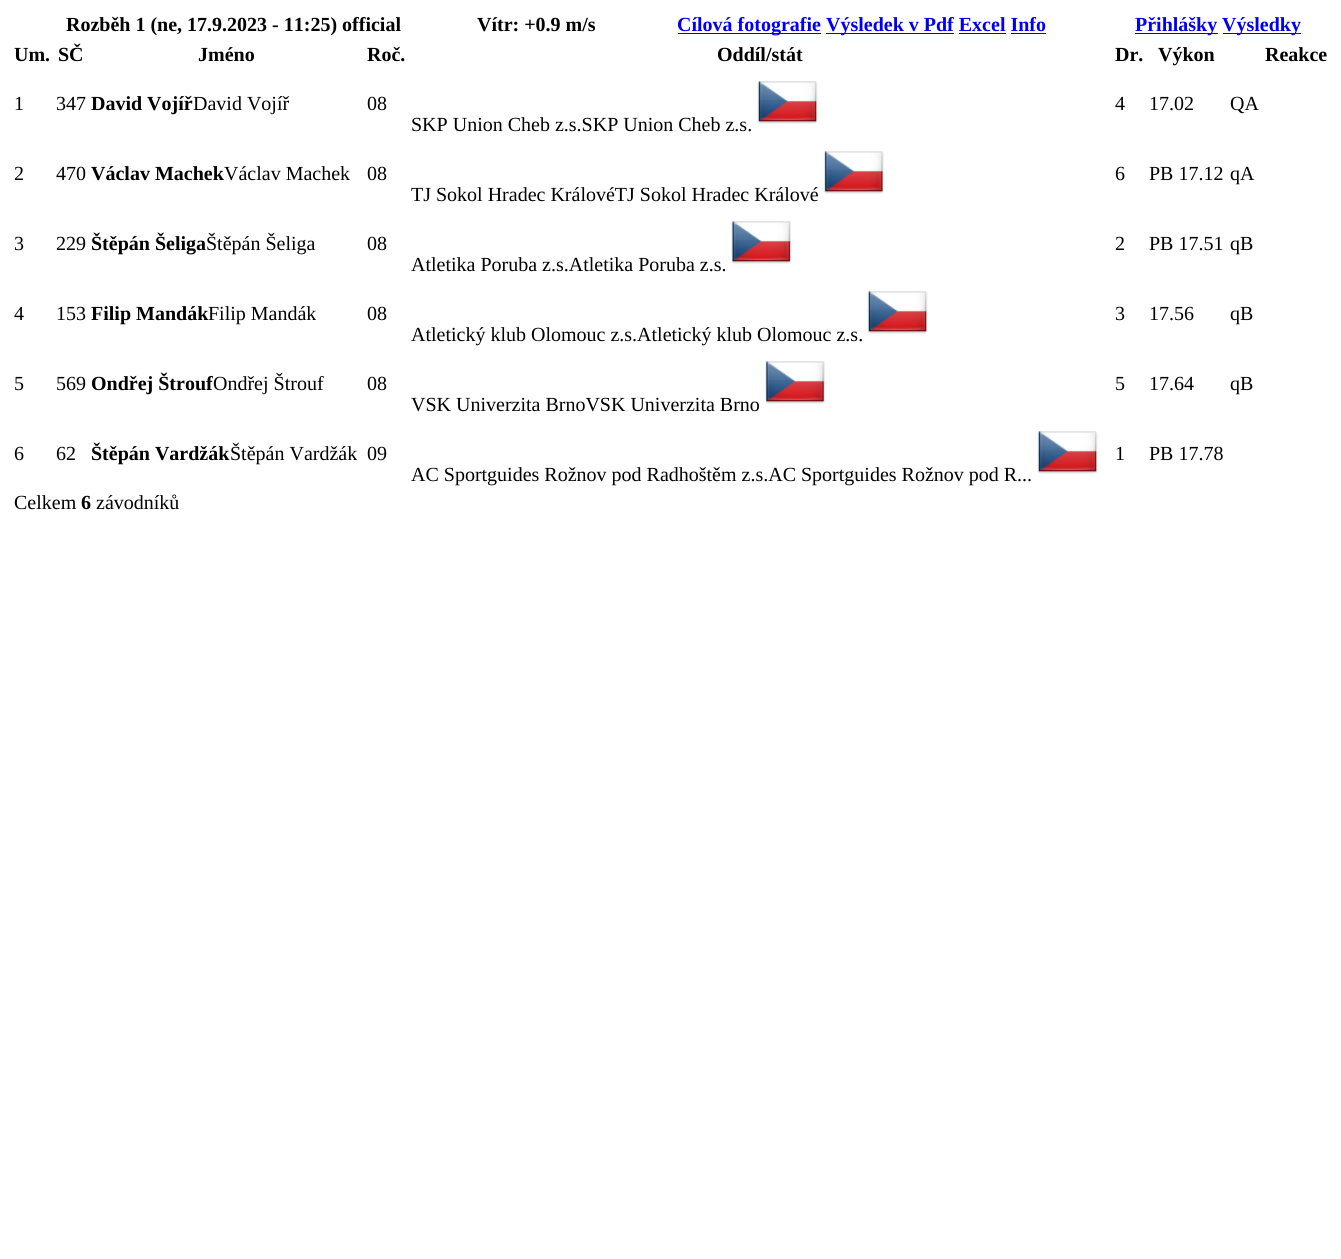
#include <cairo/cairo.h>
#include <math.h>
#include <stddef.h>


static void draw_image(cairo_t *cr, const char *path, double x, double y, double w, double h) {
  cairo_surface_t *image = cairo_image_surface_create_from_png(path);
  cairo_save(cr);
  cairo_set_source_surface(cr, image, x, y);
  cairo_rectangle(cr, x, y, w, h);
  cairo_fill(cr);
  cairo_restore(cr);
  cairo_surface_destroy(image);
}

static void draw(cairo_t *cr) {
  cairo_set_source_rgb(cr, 1, 1, 1);
  cairo_paint(cr);
  cairo_set_source_rgb(cr, 0, 0, 238 / 255.0);
  cairo_rectangle(cr, 678, 33, 143, 1);
  cairo_fill(cr);
  cairo_rectangle(cr, 826, 33, 128, 1);
  cairo_fill(cr);
  cairo_rectangle(cr, 959, 33, 47, 1);
  cairo_fill(cr);
  cairo_rectangle(cr, 1011, 33, 35, 1);
  cairo_fill(cr);
  cairo_rectangle(cr, 1135, 33, 83, 1);
  cairo_fill(cr);
  cairo_rectangle(cr, 1223, 33, 78, 1);
  cairo_fill(cr);
  draw_image(cr, "images/1.png", 757, 81, 61, 43);
  draw_image(cr, "images/2.png", 824, 151, 60, 43);
  draw_image(cr, "images/3.png", 731, 221, 60, 43);
  draw_image(cr, "images/4.png", 867, 291, 61, 43);
  draw_image(cr, "images/5.png", 765, 361, 60, 43);
  draw_image(cr, "images/6.png", 1037, 431, 61, 43);
  cairo_select_font_face(cr, "Liberation Serif", CAIRO_FONT_SLANT_NORMAL, CAIRO_FONT_WEIGHT_BOLD);
  cairo_set_font_size(cr, 20);
  cairo_set_source_rgb(cr, 0, 0, 0);
  cairo_move_to(cr, 66, 31);
  cairo_show_text(cr, "Rozběh 1 (ne, 17.9.2023 - 11:25) official");
  cairo_move_to(cr, 477, 31);
  cairo_show_text(cr, "Vítr: +0.9 m/s");
  cairo_set_source_rgb(cr, 0, 0, 238 / 255.0);
  cairo_move_to(cr, 677, 31);
  cairo_show_text(cr, "Cílová fotografie");
  cairo_move_to(cr, 826, 31);
  cairo_show_text(cr, "Výsledek v Pdf Excel Info");
  cairo_move_to(cr, 1135, 31);
  cairo_show_text(cr, "Přihlášky");
  cairo_move_to(cr, 1222, 31);
  cairo_show_text(cr, "Výsledky");
  cairo_set_source_rgb(cr, 0, 0, 0);
  cairo_move_to(cr, 14, 61);
  cairo_show_text(cr, "Um.");
  cairo_move_to(cr, 58, 61);
  cairo_show_text(cr, "SČ");
  cairo_move_to(cr, 198, 61);
  cairo_show_text(cr, "Jméno");
  cairo_move_to(cr, 367, 61);
  cairo_show_text(cr, "Roč.");
  cairo_move_to(cr, 717, 61);
  cairo_show_text(cr, "Oddíl/stát");
  cairo_move_to(cr, 1115, 61);
  cairo_show_text(cr, "Dr.");
  cairo_move_to(cr, 1158, 61);
  cairo_show_text(cr, "Výkon");
  cairo_move_to(cr, 1265, 61);
  cairo_show_text(cr, "Reakce");
  cairo_select_font_face(cr, "Liberation Serif", CAIRO_FONT_SLANT_NORMAL, CAIRO_FONT_WEIGHT_NORMAL);
  cairo_move_to(cr, 14, 110);
  cairo_show_text(cr, "1");
  cairo_move_to(cr, 56, 110);
  cairo_show_text(cr, "347");
  cairo_select_font_face(cr, "Liberation Serif", CAIRO_FONT_SLANT_NORMAL, CAIRO_FONT_WEIGHT_BOLD);
  cairo_move_to(cr, 91, 110);
  cairo_show_text(cr, "David Vojíř");
  cairo_select_font_face(cr, "Liberation Serif", CAIRO_FONT_SLANT_NORMAL, CAIRO_FONT_WEIGHT_NORMAL);
  cairo_move_to(cr, 193, 110);
  cairo_show_text(cr, "David Vojíř");
  cairo_move_to(cr, 367, 110);
  cairo_show_text(cr, "08");
  cairo_move_to(cr, 1115, 110);
  cairo_show_text(cr, "4");
  cairo_move_to(cr, 1149, 110);
  cairo_show_text(cr, "17.02");
  cairo_move_to(cr, 1230, 110);
  cairo_show_text(cr, "QA");
  cairo_move_to(cr, 411, 131);
  cairo_show_text(cr, "SKP Union Cheb z.s.SKP Union Cheb z.s.");
  cairo_move_to(cr, 14, 180);
  cairo_show_text(cr, "2");
  cairo_move_to(cr, 56, 180);
  cairo_show_text(cr, "470");
  cairo_select_font_face(cr, "Liberation Serif", CAIRO_FONT_SLANT_NORMAL, CAIRO_FONT_WEIGHT_BOLD);
  cairo_move_to(cr, 91, 180);
  cairo_show_text(cr, "Václav Machek");
  cairo_select_font_face(cr, "Liberation Serif", CAIRO_FONT_SLANT_NORMAL, CAIRO_FONT_WEIGHT_NORMAL);
  cairo_move_to(cr, 224, 180);
  cairo_show_text(cr, "Václav Machek");
  cairo_move_to(cr, 367, 180);
  cairo_show_text(cr, "08");
  cairo_move_to(cr, 1115, 180);
  cairo_show_text(cr, "6");
  cairo_move_to(cr, 1149, 180);
  cairo_show_text(cr, "PB 17.12");
  cairo_move_to(cr, 1230, 180);
  cairo_show_text(cr, "qA");
  cairo_move_to(cr, 411, 201);
  cairo_show_text(cr, "TJ Sokol Hradec KrálovéTJ Sokol Hradec Králové");
  cairo_move_to(cr, 14, 250);
  cairo_show_text(cr, "3");
  cairo_move_to(cr, 56, 250);
  cairo_show_text(cr, "229");
  cairo_select_font_face(cr, "Liberation Serif", CAIRO_FONT_SLANT_NORMAL, CAIRO_FONT_WEIGHT_BOLD);
  cairo_move_to(cr, 91, 250);
  cairo_show_text(cr, "Štěpán Šeliga");
  cairo_select_font_face(cr, "Liberation Serif", CAIRO_FONT_SLANT_NORMAL, CAIRO_FONT_WEIGHT_NORMAL);
  cairo_move_to(cr, 206, 250);
  cairo_show_text(cr, "Štěpán Šeliga");
  cairo_move_to(cr, 367, 250);
  cairo_show_text(cr, "08");
  cairo_move_to(cr, 1115, 250);
  cairo_show_text(cr, "2");
  cairo_move_to(cr, 1149, 250);
  cairo_show_text(cr, "PB 17.51");
  cairo_move_to(cr, 1230, 250);
  cairo_show_text(cr, "qB");
  cairo_move_to(cr, 411, 271);
  cairo_show_text(cr, "Atletika Poruba z.s.Atletika Poruba z.s.");
  cairo_move_to(cr, 14, 320);
  cairo_show_text(cr, "4");
  cairo_move_to(cr, 56, 320);
  cairo_show_text(cr, "153");
  cairo_select_font_face(cr, "Liberation Serif", CAIRO_FONT_SLANT_NORMAL, CAIRO_FONT_WEIGHT_BOLD);
  cairo_move_to(cr, 91, 320);
  cairo_show_text(cr, "Filip Mandák");
  cairo_select_font_face(cr, "Liberation Serif", CAIRO_FONT_SLANT_NORMAL, CAIRO_FONT_WEIGHT_NORMAL);
  cairo_move_to(cr, 208, 320);
  cairo_show_text(cr, "Filip Mandák");
  cairo_move_to(cr, 367, 320);
  cairo_show_text(cr, "08");
  cairo_move_to(cr, 1115, 320);
  cairo_show_text(cr, "3");
  cairo_move_to(cr, 1149, 320);
  cairo_show_text(cr, "17.56");
  cairo_move_to(cr, 1230, 320);
  cairo_show_text(cr, "qB");
  cairo_move_to(cr, 411, 341);
  cairo_show_text(cr, "Atletický klub Olomouc z.s.Atletický klub Olomouc z.s.");
  cairo_move_to(cr, 14, 390);
  cairo_show_text(cr, "5");
  cairo_move_to(cr, 56, 390);
  cairo_show_text(cr, "569");
  cairo_select_font_face(cr, "Liberation Serif", CAIRO_FONT_SLANT_NORMAL, CAIRO_FONT_WEIGHT_BOLD);
  cairo_move_to(cr, 91, 390);
  cairo_show_text(cr, "Ondřej Štrouf");
  cairo_select_font_face(cr, "Liberation Serif", CAIRO_FONT_SLANT_NORMAL, CAIRO_FONT_WEIGHT_NORMAL);
  cairo_move_to(cr, 213, 390);
  cairo_show_text(cr, "Ondřej Štrouf");
  cairo_move_to(cr, 367, 390);
  cairo_show_text(cr, "08");
  cairo_move_to(cr, 1115, 390);
  cairo_show_text(cr, "5");
  cairo_move_to(cr, 1149, 390);
  cairo_show_text(cr, "17.64");
  cairo_move_to(cr, 1230, 390);
  cairo_show_text(cr, "qB");
  cairo_move_to(cr, 411, 411);
  cairo_show_text(cr, "VSK Univerzita BrnoVSK Univerzita Brno");
  cairo_move_to(cr, 14, 460);
  cairo_show_text(cr, "6");
  cairo_move_to(cr, 56, 460);
  cairo_show_text(cr, "62");
  cairo_select_font_face(cr, "Liberation Serif", CAIRO_FONT_SLANT_NORMAL, CAIRO_FONT_WEIGHT_BOLD);
  cairo_move_to(cr, 91, 460);
  cairo_show_text(cr, "Štěpán Vardžák");
  cairo_select_font_face(cr, "Liberation Serif", CAIRO_FONT_SLANT_NORMAL, CAIRO_FONT_WEIGHT_NORMAL);
  cairo_move_to(cr, 230, 460);
  cairo_show_text(cr, "Štěpán Vardžák");
  cairo_move_to(cr, 367, 460);
  cairo_show_text(cr, "09");
  cairo_move_to(cr, 1115, 460);
  cairo_show_text(cr, "1");
  cairo_move_to(cr, 1149, 460);
  cairo_show_text(cr, "PB 17.78");
  cairo_move_to(cr, 411, 481);
  cairo_show_text(cr, "AC Sportguides Rožnov pod Radhoštěm z.s.AC Sportguides Rožnov pod R...");
  cairo_move_to(cr, 14, 509);
  cairo_show_text(cr, "Celkem");
  cairo_select_font_face(cr, "Liberation Serif", CAIRO_FONT_SLANT_NORMAL, CAIRO_FONT_WEIGHT_BOLD);
  cairo_move_to(cr, 81, 509);
  cairo_show_text(cr, "6");
  cairo_select_font_face(cr, "Liberation Serif", CAIRO_FONT_SLANT_NORMAL, CAIRO_FONT_WEIGHT_NORMAL);
  cairo_move_to(cr, 96, 509);
  cairo_show_text(cr, "závodníků");
}

int main(void) {
  cairo_surface_t *surface = cairo_image_surface_create(CAIRO_FORMAT_RGB24, 1341, 1259);
  cairo_t *cr = cairo_create(surface);
  cairo_font_options_t *options = cairo_font_options_create();
  cairo_font_options_set_hint_metrics(options, CAIRO_HINT_METRICS_OFF);
  cairo_font_options_set_hint_style(options, CAIRO_HINT_STYLE_NONE);
  cairo_set_font_options(cr, options);
  cairo_set_miter_limit(cr, 4);
  draw(cr);
  cairo_surface_write_to_png(surface, "out.png");
  cairo_font_options_destroy(options);
  cairo_destroy(cr);
  cairo_surface_destroy(surface);
  return 0;
}
